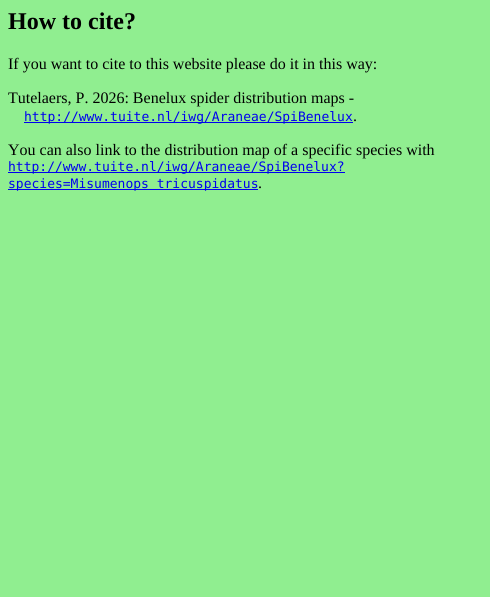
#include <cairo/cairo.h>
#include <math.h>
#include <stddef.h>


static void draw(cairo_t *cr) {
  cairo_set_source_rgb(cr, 144 / 255.0, 238 / 255.0, 144 / 255.0);
  cairo_paint(cr);
  cairo_set_source_rgb(cr, 0, 0, 238 / 255.0);
  cairo_rectangle(cr, 24, 122, 329, 1);
  cairo_fill(cr);
  cairo_rectangle(cr, 8, 172, 337, 1);
  cairo_fill(cr);
  cairo_rectangle(cr, 8, 189, 250, 1);
  cairo_fill(cr);
  cairo_select_font_face(cr, "Liberation Serif", CAIRO_FONT_SLANT_NORMAL, CAIRO_FONT_WEIGHT_BOLD);
  cairo_set_font_size(cr, 24);
  cairo_set_source_rgb(cr, 0, 0, 0);
  cairo_move_to(cr, 8, 29);
  cairo_show_text(cr, "How to cite?");
  cairo_select_font_face(cr, "Liberation Serif", CAIRO_FONT_SLANT_NORMAL, CAIRO_FONT_WEIGHT_NORMAL);
  cairo_set_font_size(cr, 16);
  cairo_move_to(cr, 8, 69);
  cairo_show_text(cr, "If you want to cite to this website please do it in this way:");
  cairo_move_to(cr, 8, 103);
  cairo_show_text(cr, "Tutelaers, P. 2026: Benelux spider distribution maps -");
  cairo_select_font_face(cr, "DejaVu Sans Mono", CAIRO_FONT_SLANT_NORMAL, CAIRO_FONT_WEIGHT_NORMAL);
  cairo_set_font_size(cr, 13);
  cairo_set_source_rgb(cr, 0, 0, 238 / 255.0);
  cairo_move_to(cr, 24, 121);
  cairo_show_text(cr, "http://www.tuite.nl/iwg/Araneae/SpiBenelux");
  cairo_select_font_face(cr, "Liberation Serif", CAIRO_FONT_SLANT_NORMAL, CAIRO_FONT_WEIGHT_NORMAL);
  cairo_set_font_size(cr, 16);
  cairo_set_source_rgb(cr, 0, 0, 0);
  cairo_move_to(cr, 353, 121);
  cairo_show_text(cr, ".");
  cairo_move_to(cr, 8, 155);
  cairo_show_text(cr, "You can also link to the distribution map of a specific species with");
  cairo_select_font_face(cr, "DejaVu Sans Mono", CAIRO_FONT_SLANT_NORMAL, CAIRO_FONT_WEIGHT_NORMAL);
  cairo_set_font_size(cr, 13);
  cairo_set_source_rgb(cr, 0, 0, 238 / 255.0);
  cairo_move_to(cr, 8, 171);
  cairo_show_text(cr, "http://www.tuite.nl/iwg/Araneae/SpiBenelux?");
  cairo_move_to(cr, 8, 188);
  cairo_show_text(cr, "species=Misumenops tricuspidatus");
  cairo_select_font_face(cr, "Liberation Serif", CAIRO_FONT_SLANT_NORMAL, CAIRO_FONT_WEIGHT_NORMAL);
  cairo_set_font_size(cr, 16);
  cairo_set_source_rgb(cr, 0, 0, 0);
  cairo_move_to(cr, 258, 188);
  cairo_show_text(cr, ".");
}

int main(void) {
  cairo_surface_t *surface = cairo_image_surface_create(CAIRO_FORMAT_RGB24, 490, 597);
  cairo_t *cr = cairo_create(surface);
  cairo_font_options_t *options = cairo_font_options_create();
  cairo_font_options_set_hint_metrics(options, CAIRO_HINT_METRICS_OFF);
  cairo_font_options_set_hint_style(options, CAIRO_HINT_STYLE_NONE);
  cairo_set_font_options(cr, options);
  cairo_set_miter_limit(cr, 4);
  draw(cr);
  cairo_surface_write_to_png(surface, "out.png");
  cairo_font_options_destroy(options);
  cairo_destroy(cr);
  cairo_surface_destroy(surface);
  return 0;
}
